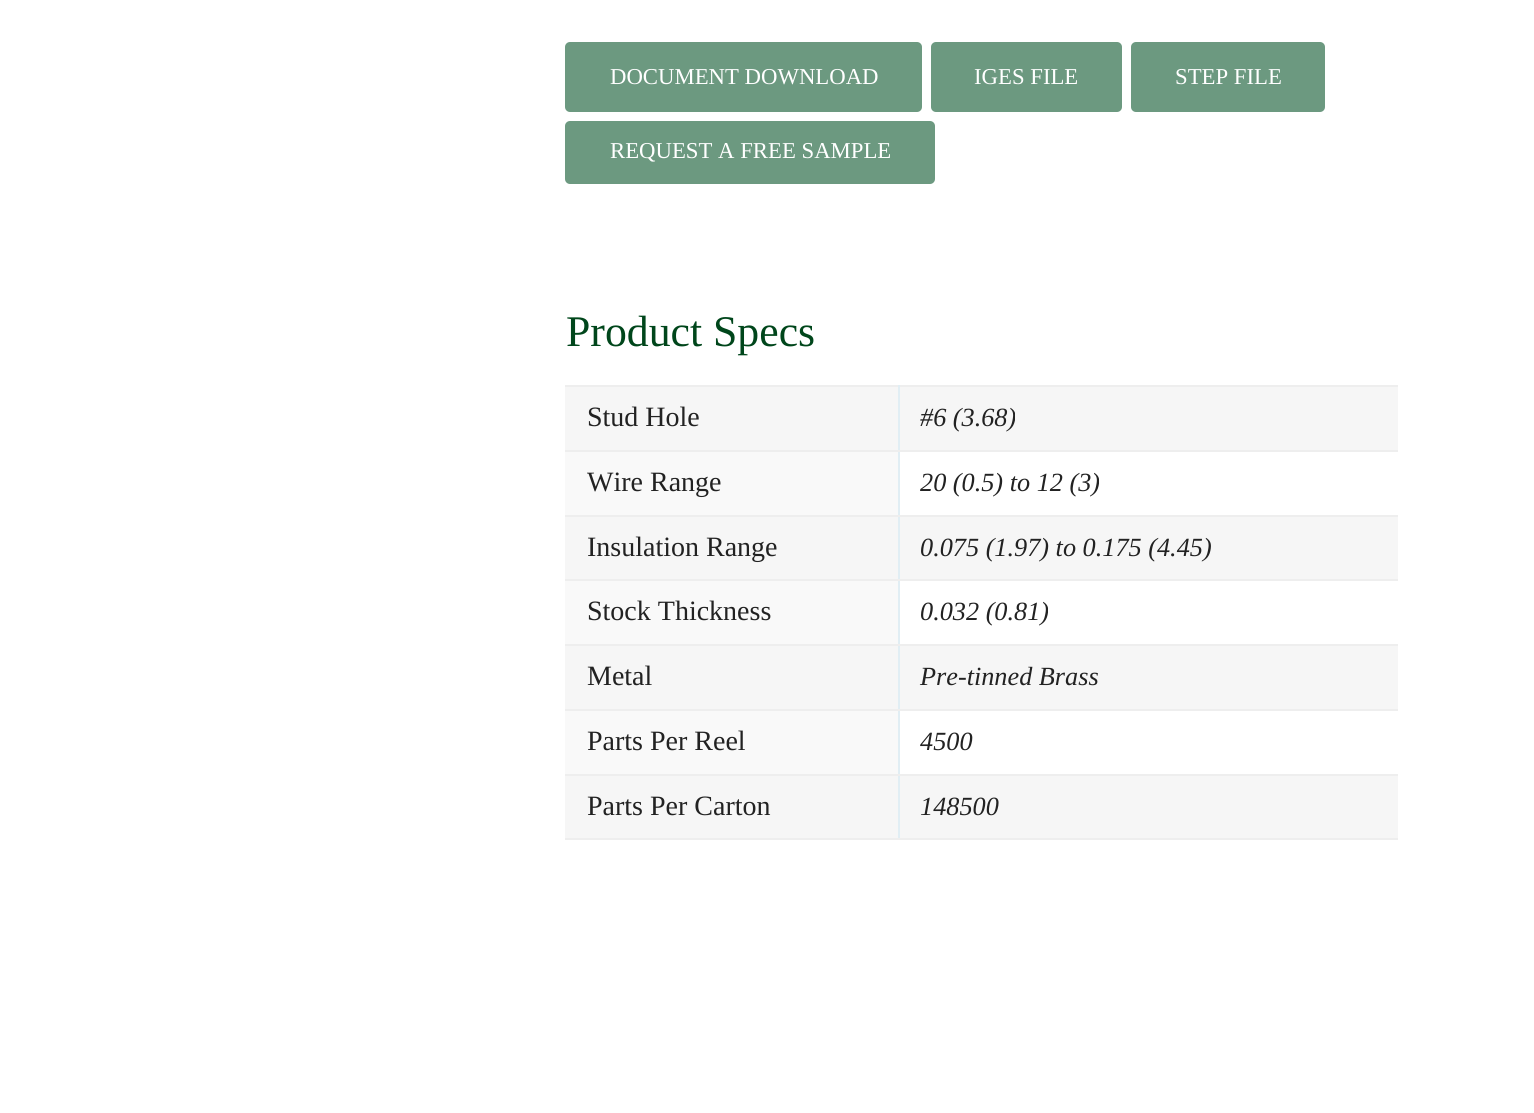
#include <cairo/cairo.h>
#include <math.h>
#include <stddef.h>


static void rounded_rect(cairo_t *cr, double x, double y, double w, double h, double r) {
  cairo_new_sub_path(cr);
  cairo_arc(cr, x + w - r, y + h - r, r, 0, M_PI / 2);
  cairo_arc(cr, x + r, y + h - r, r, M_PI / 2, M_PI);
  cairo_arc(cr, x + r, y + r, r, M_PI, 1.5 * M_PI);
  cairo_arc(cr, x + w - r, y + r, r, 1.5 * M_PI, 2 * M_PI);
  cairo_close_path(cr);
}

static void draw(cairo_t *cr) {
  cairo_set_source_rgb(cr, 1, 1, 1);
  cairo_paint(cr);
  cairo_set_source_rgb(cr, 108 / 255.0, 153 / 255.0, 128 / 255.0);
  rounded_rect(cr, 565, 42, 357, 70, 5);
  cairo_fill(cr);
  rounded_rect(cr, 931, 42, 191, 70, 5);
  cairo_fill(cr);
  rounded_rect(cr, 1131, 42, 194, 70, 5);
  cairo_fill(cr);
  rounded_rect(cr, 565, 121, 370, 63, 5);
  cairo_fill(cr);
  cairo_set_source_rgb(cr, 238 / 255.0, 238 / 255.0, 238 / 255.0);
  cairo_rectangle(cr, 565, 385, 833, 2);
  cairo_fill(cr);
  cairo_set_source_rgb(cr, 246 / 255.0, 246 / 255.0, 246 / 255.0);
  cairo_rectangle(cr, 565, 387, 833, 63);
  cairo_fill(cr);
  cairo_rectangle(cr, 565, 517, 833, 62);
  cairo_fill(cr);
  cairo_rectangle(cr, 565, 646, 833, 63);
  cairo_fill(cr);
  cairo_rectangle(cr, 565, 776, 833, 62);
  cairo_fill(cr);
  cairo_set_source_rgb(cr, 225 / 255.0, 238 / 255.0, 244 / 255.0);
  cairo_rectangle(cr, 898, 774, 2, 66);
  cairo_fill(cr);
  cairo_set_source_rgb(cr, 238 / 255.0, 238 / 255.0, 238 / 255.0);
  cairo_rectangle(cr, 898, 774, 500, 2);
  cairo_fill(cr);
  cairo_set_source_rgb(cr, 225 / 255.0, 238 / 255.0, 244 / 255.0);
  cairo_rectangle(cr, 898, 709, 2, 66);
  cairo_fill(cr);
  cairo_set_source_rgb(cr, 238 / 255.0, 238 / 255.0, 238 / 255.0);
  cairo_rectangle(cr, 898, 709, 500, 2);
  cairo_fill(cr);
  cairo_set_source_rgb(cr, 225 / 255.0, 238 / 255.0, 244 / 255.0);
  cairo_rectangle(cr, 898, 644, 2, 67);
  cairo_fill(cr);
  cairo_set_source_rgb(cr, 238 / 255.0, 238 / 255.0, 238 / 255.0);
  cairo_rectangle(cr, 898, 644, 500, 2);
  cairo_fill(cr);
  cairo_set_source_rgb(cr, 225 / 255.0, 238 / 255.0, 244 / 255.0);
  cairo_rectangle(cr, 898, 579, 2, 67);
  cairo_fill(cr);
  cairo_set_source_rgb(cr, 238 / 255.0, 238 / 255.0, 238 / 255.0);
  cairo_rectangle(cr, 898, 579, 500, 2);
  cairo_fill(cr);
  cairo_set_source_rgb(cr, 225 / 255.0, 238 / 255.0, 244 / 255.0);
  cairo_rectangle(cr, 898, 515, 2, 66);
  cairo_fill(cr);
  cairo_set_source_rgb(cr, 238 / 255.0, 238 / 255.0, 238 / 255.0);
  cairo_rectangle(cr, 898, 515, 500, 2);
  cairo_fill(cr);
  cairo_set_source_rgb(cr, 225 / 255.0, 238 / 255.0, 244 / 255.0);
  cairo_rectangle(cr, 898, 450, 2, 66);
  cairo_fill(cr);
  cairo_set_source_rgb(cr, 238 / 255.0, 238 / 255.0, 238 / 255.0);
  cairo_rectangle(cr, 898, 450, 500, 2);
  cairo_fill(cr);
  cairo_set_source_rgb(cr, 225 / 255.0, 238 / 255.0, 244 / 255.0);
  cairo_rectangle(cr, 898, 385, 2, 67);
  cairo_fill(cr);
  cairo_set_source_rgb(cr, 238 / 255.0, 238 / 255.0, 238 / 255.0);
  cairo_rectangle(cr, 565, 450, 335, 2);
  cairo_fill(cr);
  cairo_set_source_rgb(cr, 249 / 255.0, 249 / 255.0, 249 / 255.0);
  cairo_rectangle(cr, 565, 452, 333, 63);
  cairo_fill(cr);
  cairo_set_source_rgb(cr, 238 / 255.0, 238 / 255.0, 238 / 255.0);
  cairo_rectangle(cr, 565, 515, 335, 2);
  cairo_fill(cr);
  cairo_rectangle(cr, 565, 579, 335, 2);
  cairo_fill(cr);
  cairo_set_source_rgb(cr, 249 / 255.0, 249 / 255.0, 249 / 255.0);
  cairo_rectangle(cr, 565, 581, 333, 63);
  cairo_fill(cr);
  cairo_set_source_rgb(cr, 238 / 255.0, 238 / 255.0, 238 / 255.0);
  cairo_rectangle(cr, 565, 644, 335, 2);
  cairo_fill(cr);
  cairo_rectangle(cr, 565, 709, 335, 2);
  cairo_fill(cr);
  cairo_set_source_rgb(cr, 249 / 255.0, 249 / 255.0, 249 / 255.0);
  cairo_rectangle(cr, 565, 711, 333, 63);
  cairo_fill(cr);
  cairo_set_source_rgb(cr, 238 / 255.0, 238 / 255.0, 238 / 255.0);
  cairo_rectangle(cr, 565, 774, 335, 2);
  cairo_fill(cr);
  cairo_rectangle(cr, 900, 838, 498, 2);
  cairo_fill(cr);
  cairo_rectangle(cr, 565, 838, 335, 2);
  cairo_fill(cr);
  cairo_select_font_face(cr, "Liberation Serif", CAIRO_FONT_SLANT_NORMAL, CAIRO_FONT_WEIGHT_NORMAL);
  cairo_set_font_size(cr, 22.75);
  cairo_set_source_rgb(cr, 1, 1, 1);
  cairo_move_to(cr, 610, 84);
  cairo_show_text(cr, "DOCUMENT DOWNLOAD");
  cairo_move_to(cr, 974, 84);
  cairo_show_text(cr, "IGES FILE");
  cairo_move_to(cr, 1175, 84);
  cairo_show_text(cr, "STEP FILE");
  cairo_move_to(cr, 610, 158);
  cairo_show_text(cr, "REQUEST A FREE SAMPLE");
  cairo_set_font_size(cr, 43.75);
  cairo_set_source_rgb(cr, 0, 70 / 255.0, 27 / 255.0);
  cairo_move_to(cr, 566, 346);
  cairo_show_text(cr, "Product Specs");
  cairo_set_font_size(cr, 28);
  cairo_set_source_rgb(cr, 34 / 255.0, 34 / 255.0, 34 / 255.0);
  cairo_move_to(cr, 587, 426);
  cairo_show_text(cr, "Stud Hole");
  cairo_select_font_face(cr, "Liberation Serif", CAIRO_FONT_SLANT_ITALIC, CAIRO_FONT_WEIGHT_NORMAL);
  cairo_set_font_size(cr, 26.25);
  cairo_move_to(cr, 920, 426);
  cairo_show_text(cr, "#6 (3.68)");
  cairo_select_font_face(cr, "Liberation Serif", CAIRO_FONT_SLANT_NORMAL, CAIRO_FONT_WEIGHT_NORMAL);
  cairo_set_font_size(cr, 28);
  cairo_move_to(cr, 587, 491);
  cairo_show_text(cr, "Wire Range");
  cairo_select_font_face(cr, "Liberation Serif", CAIRO_FONT_SLANT_ITALIC, CAIRO_FONT_WEIGHT_NORMAL);
  cairo_set_font_size(cr, 26.25);
  cairo_move_to(cr, 920, 491);
  cairo_show_text(cr, "20 (0.5) to 12 (3)");
  cairo_select_font_face(cr, "Liberation Serif", CAIRO_FONT_SLANT_NORMAL, CAIRO_FONT_WEIGHT_NORMAL);
  cairo_set_font_size(cr, 28);
  cairo_move_to(cr, 587, 556);
  cairo_show_text(cr, "Insulation Range");
  cairo_select_font_face(cr, "Liberation Serif", CAIRO_FONT_SLANT_ITALIC, CAIRO_FONT_WEIGHT_NORMAL);
  cairo_set_font_size(cr, 26.25);
  cairo_move_to(cr, 920, 556);
  cairo_show_text(cr, "0.075 (1.97) to 0.175 (4.45)");
  cairo_select_font_face(cr, "Liberation Serif", CAIRO_FONT_SLANT_NORMAL, CAIRO_FONT_WEIGHT_NORMAL);
  cairo_set_font_size(cr, 28);
  cairo_move_to(cr, 587, 620);
  cairo_show_text(cr, "Stock Thickness");
  cairo_select_font_face(cr, "Liberation Serif", CAIRO_FONT_SLANT_ITALIC, CAIRO_FONT_WEIGHT_NORMAL);
  cairo_set_font_size(cr, 26.25);
  cairo_move_to(cr, 920, 620);
  cairo_show_text(cr, "0.032 (0.81)");
  cairo_select_font_face(cr, "Liberation Serif", CAIRO_FONT_SLANT_NORMAL, CAIRO_FONT_WEIGHT_NORMAL);
  cairo_set_font_size(cr, 28);
  cairo_move_to(cr, 587, 685);
  cairo_show_text(cr, "Metal");
  cairo_select_font_face(cr, "Liberation Serif", CAIRO_FONT_SLANT_ITALIC, CAIRO_FONT_WEIGHT_NORMAL);
  cairo_set_font_size(cr, 26.25);
  cairo_move_to(cr, 920, 685);
  cairo_show_text(cr, "Pre-tinned Brass");
  cairo_select_font_face(cr, "Liberation Serif", CAIRO_FONT_SLANT_NORMAL, CAIRO_FONT_WEIGHT_NORMAL);
  cairo_set_font_size(cr, 28);
  cairo_move_to(cr, 587, 750);
  cairo_show_text(cr, "Parts Per Reel");
  cairo_select_font_face(cr, "Liberation Serif", CAIRO_FONT_SLANT_ITALIC, CAIRO_FONT_WEIGHT_NORMAL);
  cairo_set_font_size(cr, 26.25);
  cairo_move_to(cr, 920, 750);
  cairo_show_text(cr, "4500");
  cairo_select_font_face(cr, "Liberation Serif", CAIRO_FONT_SLANT_NORMAL, CAIRO_FONT_WEIGHT_NORMAL);
  cairo_set_font_size(cr, 28);
  cairo_move_to(cr, 587, 815);
  cairo_show_text(cr, "Parts Per Carton");
  cairo_select_font_face(cr, "Liberation Serif", CAIRO_FONT_SLANT_ITALIC, CAIRO_FONT_WEIGHT_NORMAL);
  cairo_set_font_size(cr, 26.25);
  cairo_move_to(cr, 920, 815);
  cairo_show_text(cr, "148500");
}

int main(void) {
  cairo_surface_t *surface = cairo_image_surface_create(CAIRO_FORMAT_RGB24, 1534, 1113);
  cairo_t *cr = cairo_create(surface);
  cairo_font_options_t *options = cairo_font_options_create();
  cairo_font_options_set_hint_metrics(options, CAIRO_HINT_METRICS_OFF);
  cairo_font_options_set_hint_style(options, CAIRO_HINT_STYLE_NONE);
  cairo_set_font_options(cr, options);
  cairo_set_miter_limit(cr, 4);
  draw(cr);
  cairo_surface_write_to_png(surface, "out.png");
  cairo_font_options_destroy(options);
  cairo_destroy(cr);
  cairo_surface_destroy(surface);
  return 0;
}
